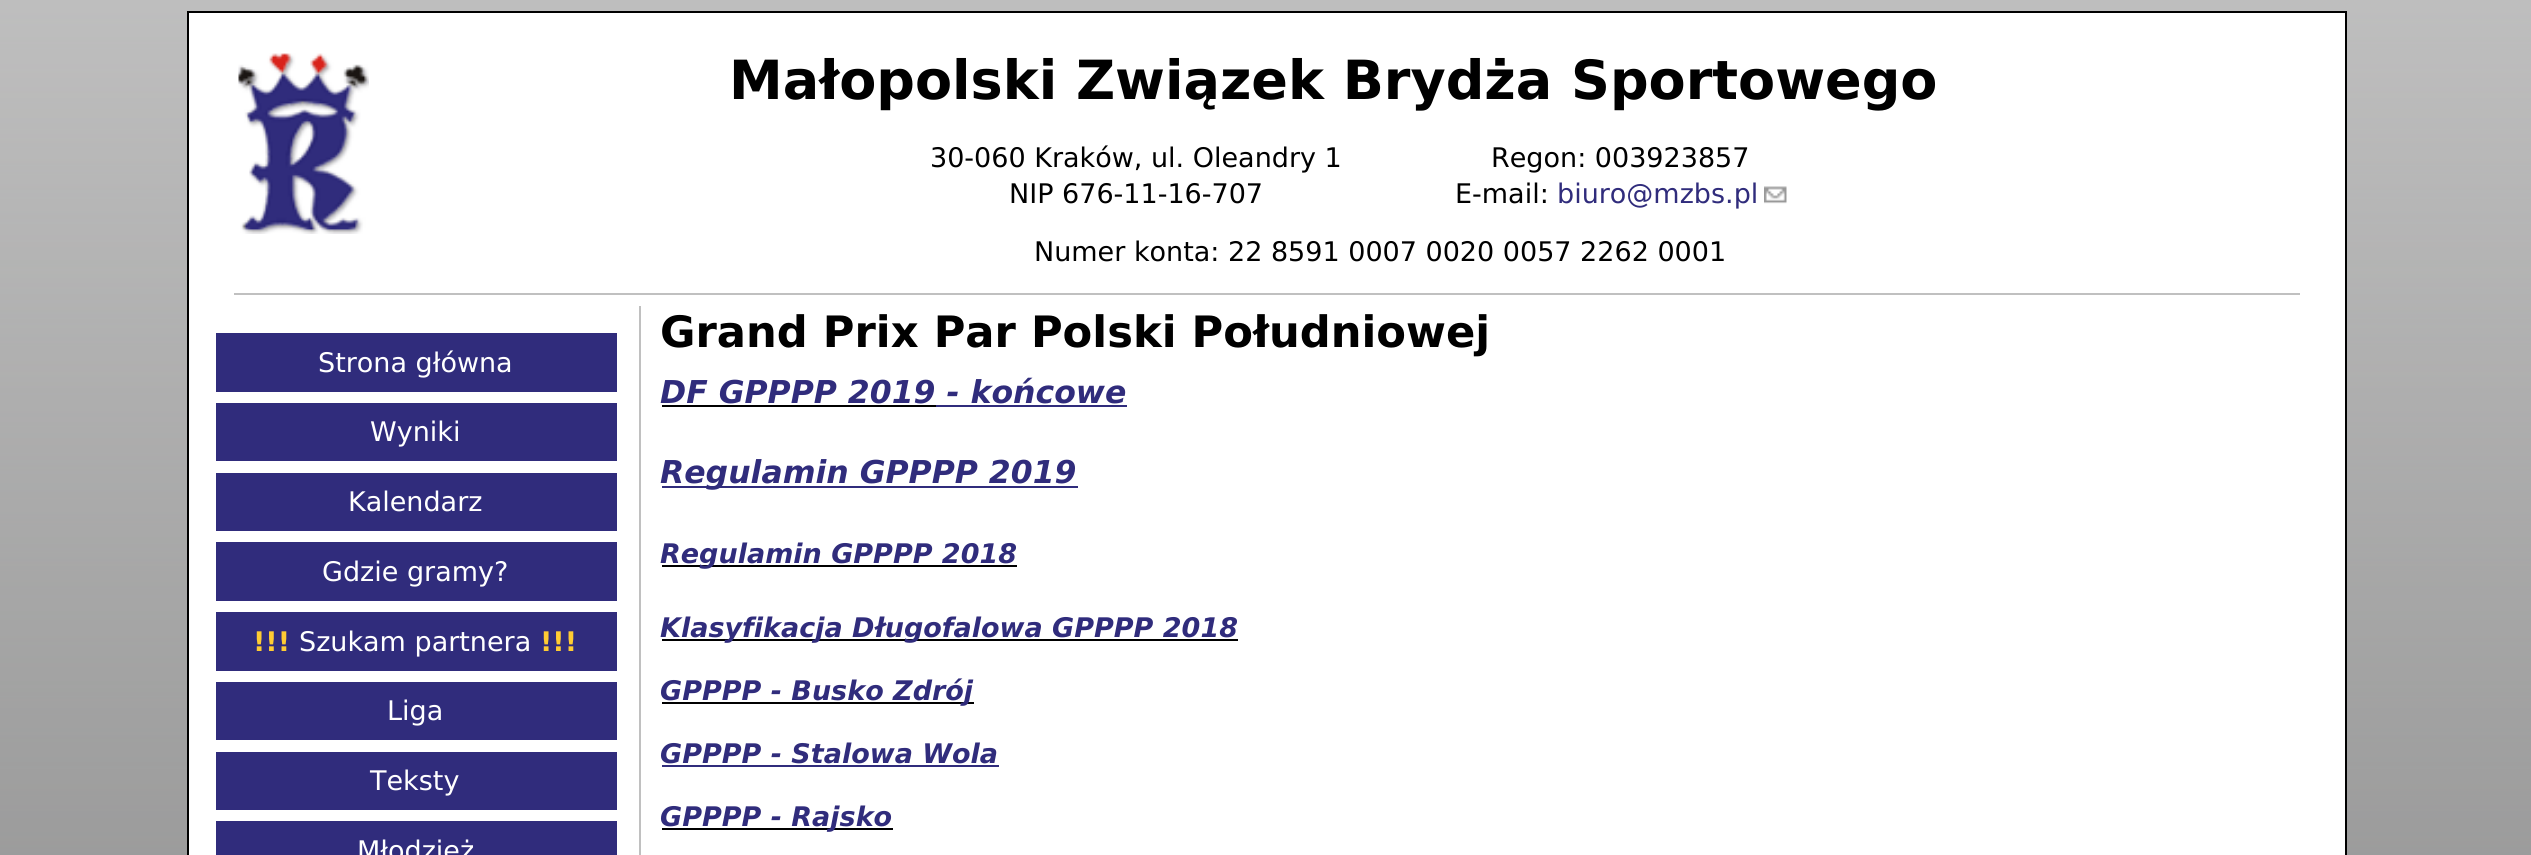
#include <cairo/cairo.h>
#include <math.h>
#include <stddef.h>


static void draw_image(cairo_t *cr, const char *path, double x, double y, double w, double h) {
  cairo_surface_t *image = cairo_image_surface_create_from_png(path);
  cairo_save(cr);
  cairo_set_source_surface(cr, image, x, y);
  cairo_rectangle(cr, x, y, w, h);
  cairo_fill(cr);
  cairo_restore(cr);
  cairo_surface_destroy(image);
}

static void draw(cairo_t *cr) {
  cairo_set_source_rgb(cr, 1, 1, 1);
  cairo_paint(cr);
  draw_image(cr, "images/1.png", 0, 0, 2531, 855);
  cairo_set_source_rgb(cr, 1, 1, 1);
  cairo_rectangle(cr, 188, 12, 2158, 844);
  cairo_fill_preserve(cr);
  cairo_set_source_rgb(cr, 0, 0, 0);
  cairo_stroke(cr);
  cairo_set_source_rgb(cr, 192 / 255.0, 192 / 255.0, 192 / 255.0);
  cairo_rectangle(cr, 234, 293, 2066, 2);
  cairo_fill(cr);
  draw_image(cr, "images/2.png", 238, 53, 131, 181);
  draw_image(cr, "images/3.png", 1764, 186, 23, 18);
  cairo_rectangle(cr, 639, 306, 2, 549);
  cairo_fill(cr);
  cairo_set_source_rgb(cr, 48 / 255.0, 44 / 255.0, 124 / 255.0);
  cairo_rectangle(cr, 216, 333, 401, 59);
  cairo_fill(cr);
  cairo_rectangle(cr, 216, 403, 401, 58);
  cairo_fill(cr);
  cairo_rectangle(cr, 216, 473, 401, 58);
  cairo_fill(cr);
  cairo_rectangle(cr, 216, 542, 401, 59);
  cairo_fill(cr);
  cairo_rectangle(cr, 216, 612, 401, 59);
  cairo_fill(cr);
  cairo_rectangle(cr, 216, 682, 401, 58);
  cairo_fill(cr);
  cairo_rectangle(cr, 216, 752, 401, 58);
  cairo_fill(cr);
  cairo_rectangle(cr, 216, 821, 401, 34);
  cairo_fill(cr);
  cairo_set_source_rgb(cr, 0, 0, 0);
  cairo_rectangle(cr, 662, 405, 274, 2);
  cairo_fill(cr);
  cairo_set_source_rgb(cr, 48 / 255.0, 44 / 255.0, 124 / 255.0);
  cairo_rectangle(cr, 936, 405, 191, 2);
  cairo_fill(cr);
  cairo_rectangle(cr, 662, 486, 416, 2);
  cairo_fill(cr);
  cairo_set_source_rgb(cr, 0, 0, 0);
  cairo_rectangle(cr, 662, 565, 355, 2);
  cairo_fill(cr);
  cairo_rectangle(cr, 662, 639, 576, 2);
  cairo_fill(cr);
  cairo_rectangle(cr, 662, 702, 312, 2);
  cairo_fill(cr);
  cairo_set_source_rgb(cr, 48 / 255.0, 44 / 255.0, 124 / 255.0);
  cairo_rectangle(cr, 662, 765, 337, 2);
  cairo_fill(cr);
  cairo_set_source_rgb(cr, 0, 0, 0);
  cairo_rectangle(cr, 662, 828, 231, 2);
  cairo_fill(cr);
  cairo_select_font_face(cr, "DejaVu Sans", CAIRO_FONT_SLANT_NORMAL, CAIRO_FONT_WEIGHT_BOLD);
  cairo_set_font_size(cr, 54);
  cairo_move_to(cr, 729, 99);
  cairo_show_text(cr, "Małopolski Związek Brydża Sportowego");
  cairo_select_font_face(cr, "DejaVu Sans", CAIRO_FONT_SLANT_NORMAL, CAIRO_FONT_WEIGHT_NORMAL);
  cairo_set_font_size(cr, 27);
  cairo_move_to(cr, 930, 167);
  cairo_show_text(cr, "30-060 Kraków, ul. Oleandry 1");
  cairo_move_to(cr, 1009, 203);
  cairo_show_text(cr, "NIP 676-11-16-707");
  cairo_move_to(cr, 1491, 167);
  cairo_show_text(cr, "Regon: 003923857");
  cairo_move_to(cr, 1455, 203);
  cairo_show_text(cr, "E-mail:");
  cairo_set_source_rgb(cr, 48 / 255.0, 44 / 255.0, 124 / 255.0);
  cairo_move_to(cr, 1557, 203);
  cairo_show_text(cr, "biuro@mzbs.pl");
  cairo_set_source_rgb(cr, 0, 0, 0);
  cairo_move_to(cr, 1034, 261);
  cairo_show_text(cr, "Numer konta: 22 8591 0007 0020 0057 2262 0001");
  cairo_set_source_rgb(cr, 1, 1, 1);
  cairo_move_to(cr, 318, 372);
  cairo_show_text(cr, "Strona główna");
  cairo_move_to(cr, 370, 441);
  cairo_show_text(cr, "Wyniki");
  cairo_move_to(cr, 348, 511);
  cairo_show_text(cr, "Kalendarz");
  cairo_move_to(cr, 322, 581);
  cairo_show_text(cr, "Gdzie gramy?");
  cairo_select_font_face(cr, "DejaVu Sans", CAIRO_FONT_SLANT_NORMAL, CAIRO_FONT_WEIGHT_BOLD);
  cairo_set_source_rgb(cr, 1, 204 / 255.0, 51 / 255.0);
  cairo_move_to(cr, 253, 651);
  cairo_show_text(cr, "!!!");
  cairo_select_font_face(cr, "DejaVu Sans", CAIRO_FONT_SLANT_NORMAL, CAIRO_FONT_WEIGHT_NORMAL);
  cairo_set_source_rgb(cr, 1, 1, 1);
  cairo_move_to(cr, 299, 651);
  cairo_show_text(cr, "Szukam partnera");
  cairo_select_font_face(cr, "DejaVu Sans", CAIRO_FONT_SLANT_NORMAL, CAIRO_FONT_WEIGHT_BOLD);
  cairo_set_source_rgb(cr, 1, 204 / 255.0, 51 / 255.0);
  cairo_move_to(cr, 540, 651);
  cairo_show_text(cr, "!!!");
  cairo_select_font_face(cr, "DejaVu Sans", CAIRO_FONT_SLANT_NORMAL, CAIRO_FONT_WEIGHT_NORMAL);
  cairo_set_source_rgb(cr, 1, 1, 1);
  cairo_move_to(cr, 387, 720);
  cairo_show_text(cr, "Liga");
  cairo_move_to(cr, 370, 790);
  cairo_show_text(cr, "Teksty");
  cairo_move_to(cr, 357, 860);
  cairo_show_text(cr, "Młodzież");
  cairo_select_font_face(cr, "DejaVu Sans", CAIRO_FONT_SLANT_NORMAL, CAIRO_FONT_WEIGHT_BOLD);
  cairo_set_font_size(cr, 43.25);
  cairo_set_source_rgb(cr, 0, 0, 0);
  cairo_move_to(cr, 660, 347);
  cairo_show_text(cr, "Grand Prix Par Polski Południowej");
  cairo_select_font_face(cr, "DejaVu Sans", CAIRO_FONT_SLANT_ITALIC, CAIRO_FONT_WEIGHT_BOLD);
  cairo_set_font_size(cr, 31.5);
  cairo_set_source_rgb(cr, 48 / 255.0, 44 / 255.0, 124 / 255.0);
  cairo_move_to(cr, 660, 403);
  cairo_show_text(cr, "DF GPPPP 2019 - końcowe");
  cairo_move_to(cr, 660, 483);
  cairo_show_text(cr, "Regulamin GPPPP 2019");
  cairo_set_font_size(cr, 27);
  cairo_move_to(cr, 660, 563);
  cairo_show_text(cr, "Regulamin GPPPP 2018");
  cairo_move_to(cr, 660, 637);
  cairo_show_text(cr, "Klasyfikacja Długofalowa GPPPP 2018");
  cairo_move_to(cr, 660, 700);
  cairo_show_text(cr, "GPPPP - Busko Zdrój");
  cairo_move_to(cr, 660, 763);
  cairo_show_text(cr, "GPPPP - Stalowa Wola");
  cairo_move_to(cr, 660, 826);
  cairo_show_text(cr, "GPPPP - Rajsko");
}

int main(void) {
  cairo_surface_t *surface = cairo_image_surface_create(CAIRO_FORMAT_RGB24, 2531, 855);
  cairo_t *cr = cairo_create(surface);
  cairo_font_options_t *options = cairo_font_options_create();
  cairo_font_options_set_hint_metrics(options, CAIRO_HINT_METRICS_OFF);
  cairo_font_options_set_hint_style(options, CAIRO_HINT_STYLE_NONE);
  cairo_set_font_options(cr, options);
  cairo_set_miter_limit(cr, 4);
  draw(cr);
  cairo_surface_write_to_png(surface, "out.png");
  cairo_font_options_destroy(options);
  cairo_destroy(cr);
  cairo_surface_destroy(surface);
  return 0;
}
